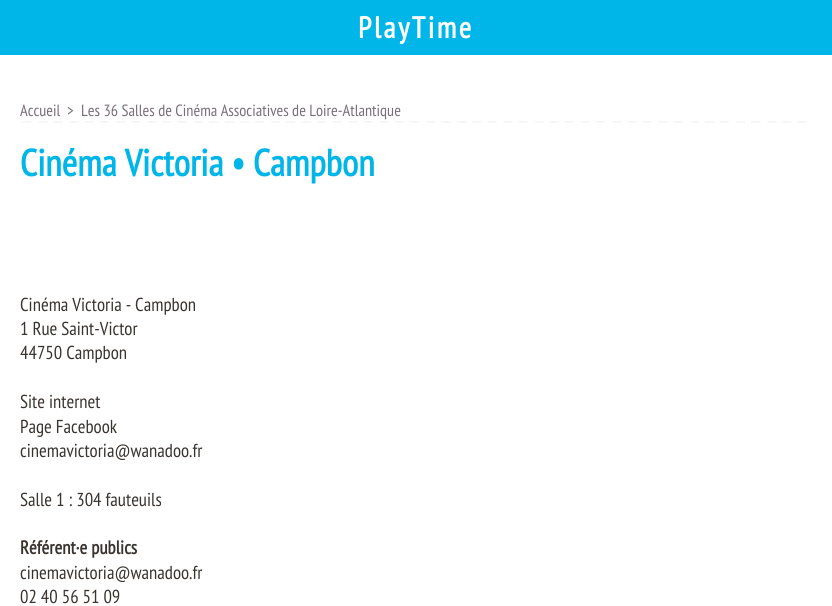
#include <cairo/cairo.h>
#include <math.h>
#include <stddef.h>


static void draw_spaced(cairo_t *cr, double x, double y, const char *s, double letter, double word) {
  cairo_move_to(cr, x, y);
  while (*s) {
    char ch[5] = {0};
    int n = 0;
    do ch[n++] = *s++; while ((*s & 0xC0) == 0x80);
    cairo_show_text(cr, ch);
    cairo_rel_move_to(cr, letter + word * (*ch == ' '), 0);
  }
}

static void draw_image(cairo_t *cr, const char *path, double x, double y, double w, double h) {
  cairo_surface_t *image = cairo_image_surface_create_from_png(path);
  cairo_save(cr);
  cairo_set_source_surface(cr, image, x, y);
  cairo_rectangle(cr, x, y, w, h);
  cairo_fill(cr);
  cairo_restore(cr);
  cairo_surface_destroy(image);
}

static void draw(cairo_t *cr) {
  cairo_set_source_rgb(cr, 1, 1, 1);
  cairo_paint(cr);
  cairo_set_source_rgb(cr, 0, 182 / 255.0, 232 / 255.0);
  cairo_rectangle(cr, 0, 0, 832, 55);
  cairo_fill(cr);
  draw_image(cr, "images/1.png", 22, 121, 785, 2);
  cairo_select_font_face(cr, "PT Sans Narrow", CAIRO_FONT_SLANT_NORMAL, CAIRO_FONT_WEIGHT_BOLD);
  cairo_set_font_size(cr, 30);
  cairo_set_source_rgb(cr, 1, 1, 1);
  draw_spaced(cr, 358, 38, "PlayTime", 2.5, 0);
  cairo_select_font_face(cr, "PT Sans Narrow", CAIRO_FONT_SLANT_NORMAL, CAIRO_FONT_WEIGHT_NORMAL);
  cairo_set_font_size(cr, 16.25);
  cairo_set_source_rgb(cr, 120 / 255.0, 111 / 255.0, 120 / 255.0);
  cairo_move_to(cr, 20, 116);
  cairo_show_text(cr, "Accueil");
  cairo_move_to(cr, 67, 116);
  cairo_show_text(cr, ">");
  cairo_move_to(cr, 81, 116);
  cairo_show_text(cr, "Les 36 Salles de Cinéma Associatives de Loire-Atlantique");
  cairo_select_font_face(cr, "PT Sans Narrow", CAIRO_FONT_SLANT_NORMAL, CAIRO_FONT_WEIGHT_BOLD);
  cairo_set_font_size(cr, 37.5);
  cairo_set_source_rgb(cr, 0, 182 / 255.0, 232 / 255.0);
  cairo_move_to(cr, 20, 176);
  cairo_show_text(cr, "Cinéma Victoria • Campbon");
  cairo_select_font_face(cr, "PT Sans Narrow", CAIRO_FONT_SLANT_NORMAL, CAIRO_FONT_WEIGHT_NORMAL);
  cairo_set_font_size(cr, 18.75);
  cairo_set_source_rgb(cr, 58 / 255.0, 52 / 255.0, 49 / 255.0);
  cairo_move_to(cr, 20, 311);
  cairo_show_text(cr, "Cinéma Victoria - Campbon");
  cairo_move_to(cr, 20, 335);
  cairo_show_text(cr, "1 Rue Saint-Victor");
  cairo_move_to(cr, 20, 359);
  cairo_show_text(cr, "44750 Campbon");
  cairo_move_to(cr, 20, 408);
  cairo_show_text(cr, "Site internet");
  cairo_move_to(cr, 20, 433);
  cairo_show_text(cr, "Page Facebook");
  cairo_move_to(cr, 20, 457);
  cairo_show_text(cr, "cinemavictoria@wanadoo.fr");
  cairo_move_to(cr, 20, 506);
  cairo_show_text(cr, "Salle 1 : 304 fauteuils");
  cairo_select_font_face(cr, "PT Sans Narrow", CAIRO_FONT_SLANT_NORMAL, CAIRO_FONT_WEIGHT_BOLD);
  cairo_move_to(cr, 20, 554);
  cairo_show_text(cr, "Référent·e publics");
  cairo_select_font_face(cr, "PT Sans Narrow", CAIRO_FONT_SLANT_NORMAL, CAIRO_FONT_WEIGHT_NORMAL);
  cairo_move_to(cr, 20, 579);
  cairo_show_text(cr, "cinemavictoria@wanadoo.fr");
  cairo_move_to(cr, 20, 603);
  cairo_show_text(cr, "02 40 56 51 09");
}

int main(void) {
  cairo_surface_t *surface = cairo_image_surface_create(CAIRO_FORMAT_RGB24, 832, 606);
  cairo_t *cr = cairo_create(surface);
  cairo_font_options_t *options = cairo_font_options_create();
  cairo_font_options_set_hint_metrics(options, CAIRO_HINT_METRICS_OFF);
  cairo_font_options_set_hint_style(options, CAIRO_HINT_STYLE_NONE);
  cairo_set_font_options(cr, options);
  cairo_set_miter_limit(cr, 4);
  draw(cr);
  cairo_surface_write_to_png(surface, "out.png");
  cairo_font_options_destroy(options);
  cairo_destroy(cr);
  cairo_surface_destroy(surface);
  return 0;
}
